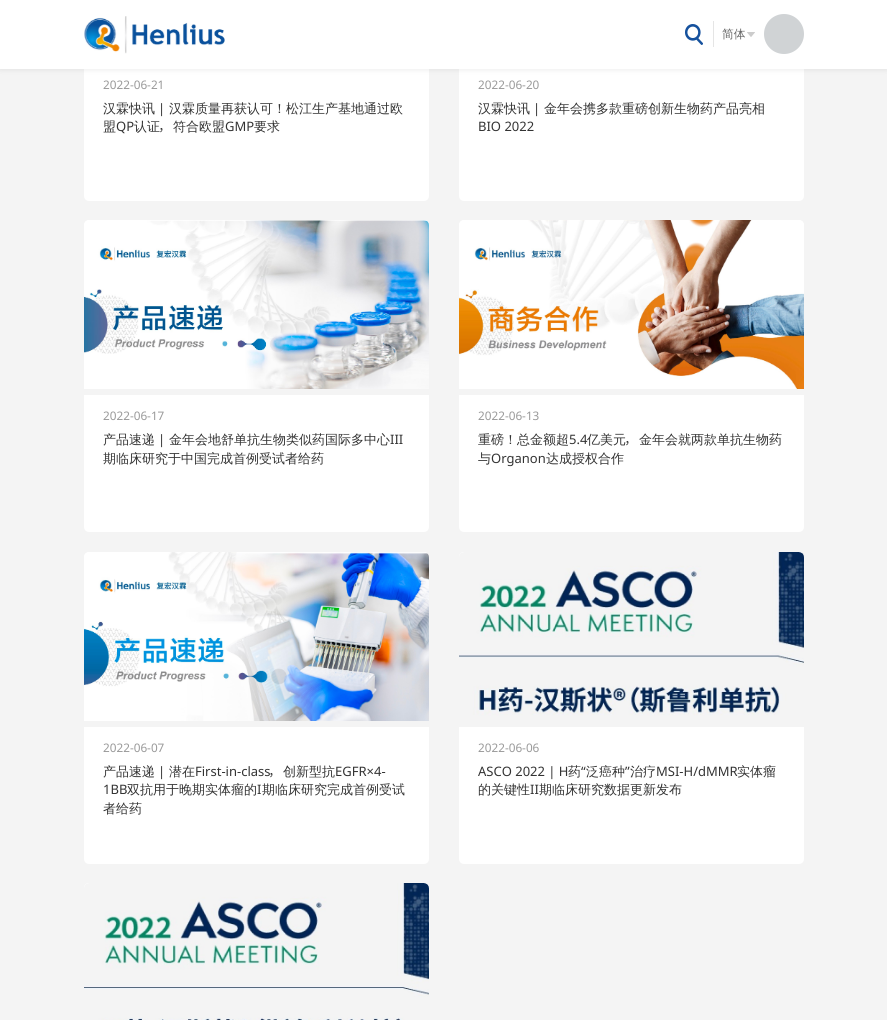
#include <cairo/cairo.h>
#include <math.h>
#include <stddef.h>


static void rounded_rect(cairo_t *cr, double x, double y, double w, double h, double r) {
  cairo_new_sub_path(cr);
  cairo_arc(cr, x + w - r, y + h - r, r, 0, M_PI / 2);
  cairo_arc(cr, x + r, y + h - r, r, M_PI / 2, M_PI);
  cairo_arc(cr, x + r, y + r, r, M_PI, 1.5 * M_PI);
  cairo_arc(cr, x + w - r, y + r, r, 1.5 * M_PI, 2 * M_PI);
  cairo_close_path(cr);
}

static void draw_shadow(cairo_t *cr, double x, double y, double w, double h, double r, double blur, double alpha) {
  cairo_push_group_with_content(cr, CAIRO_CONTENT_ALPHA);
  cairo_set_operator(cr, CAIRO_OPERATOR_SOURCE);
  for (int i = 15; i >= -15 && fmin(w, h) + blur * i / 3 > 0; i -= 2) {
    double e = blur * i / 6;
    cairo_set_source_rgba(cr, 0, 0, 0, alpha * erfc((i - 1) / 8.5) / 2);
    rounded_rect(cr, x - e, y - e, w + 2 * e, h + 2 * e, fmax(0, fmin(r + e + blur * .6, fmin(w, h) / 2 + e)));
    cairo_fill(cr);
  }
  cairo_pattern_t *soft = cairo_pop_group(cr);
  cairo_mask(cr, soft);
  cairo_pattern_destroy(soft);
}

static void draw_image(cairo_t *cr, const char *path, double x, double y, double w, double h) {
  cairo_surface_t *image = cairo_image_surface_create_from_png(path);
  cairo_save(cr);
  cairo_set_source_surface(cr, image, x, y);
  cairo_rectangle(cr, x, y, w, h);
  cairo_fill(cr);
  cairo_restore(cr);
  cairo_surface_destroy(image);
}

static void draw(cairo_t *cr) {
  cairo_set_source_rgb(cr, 244 / 255.0, 244 / 255.0, 244 / 255.0);
  cairo_paint(cr);
  cairo_set_source_rgb(cr, 1, 1, 1);
  rounded_rect(cr, 84, -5, 345, 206, 5);
  cairo_fill(cr);
  rounded_rect(cr, 459, -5, 345, 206, 5);
  cairo_fill(cr);
  cairo_set_source_rgb(cr, 0, 0, 0);
  draw_shadow(cr, 0, 0, 887, 69, 0, 3, 0.1);
  cairo_set_source_rgb(cr, 1, 1, 1);
  cairo_rectangle(cr, 0, 0, 887, 69);
  cairo_fill(cr);
  draw_image(cr, "images/1.png", 84, 16, 141, 38);
  draw_image(cr, "images/2.png", 685, 24, 18, 21);
  cairo_set_source_rgb(cr, 229 / 255.0, 229 / 255.0, 229 / 255.0);
  cairo_rectangle(cr, 713, 21, 1, 26);
  cairo_fill(cr);
  draw_image(cr, "images/3.png", 747, 32, 8, 5);
  cairo_set_source_rgb(cr, 208 / 255.0, 211 / 255.0, 213 / 255.0);
  cairo_arc(cr, 784, 34, 20, 0, 2 * M_PI);
  cairo_fill(cr);
  cairo_set_source_rgb(cr, 1, 1, 1);
  rounded_rect(cr, 84, 220, 345, 312, 5);
  cairo_fill(cr);
  draw_image(cr, "images/4.png", 84, 220, 345, 169);
  cairo_set_source_rgb(cr, 244 / 255.0, 244 / 255.0, 244 / 255.0);
  cairo_rectangle(cr, 84, 389, 345, 6);
  cairo_fill(cr);
  cairo_set_source_rgb(cr, 1, 1, 1);
  rounded_rect(cr, 459, 220, 345, 312, 5);
  cairo_fill(cr);
  draw_image(cr, "images/5.png", 459, 220, 345, 169);
  cairo_set_source_rgb(cr, 244 / 255.0, 244 / 255.0, 244 / 255.0);
  cairo_rectangle(cr, 459, 389, 345, 6);
  cairo_fill(cr);
  cairo_set_source_rgb(cr, 1, 1, 1);
  rounded_rect(cr, 84, 552, 345, 312, 5);
  cairo_fill(cr);
  draw_image(cr, "images/6.png", 84, 552, 345, 169);
  cairo_set_source_rgb(cr, 244 / 255.0, 244 / 255.0, 244 / 255.0);
  cairo_rectangle(cr, 84, 721, 345, 6);
  cairo_fill(cr);
  cairo_set_source_rgb(cr, 1, 1, 1);
  rounded_rect(cr, 459, 552, 345, 312, 5);
  cairo_fill(cr);
  draw_image(cr, "images/7.png", 459, 552, 345, 169);
  cairo_set_source_rgb(cr, 244 / 255.0, 244 / 255.0, 244 / 255.0);
  cairo_rectangle(cr, 459, 721, 345, 6);
  cairo_fill(cr);
  cairo_set_source_rgb(cr, 1, 1, 1);
  rounded_rect(cr, 84, 883, 345, 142, 5);
  cairo_fill(cr);
  draw_image(cr, "images/8.png", 84, 883, 345, 137);
  cairo_select_font_face(cr, "WenQuanYi Zen Hei Medium", CAIRO_FONT_SLANT_NORMAL, CAIRO_FONT_WEIGHT_NORMAL);
  cairo_set_font_size(cr, 11.75);
  cairo_set_source_rgb(cr, 102 / 255.0, 102 / 255.0, 102 / 255.0);
  cairo_move_to(cr, 722, 38);
  cairo_show_text(cr, "简体");
  cairo_select_font_face(cr, "Noto Sans", CAIRO_FONT_SLANT_NORMAL, CAIRO_FONT_WEIGHT_NORMAL);
  cairo_set_source_rgb(cr, 153 / 255.0, 153 / 255.0, 153 / 255.0);
  cairo_move_to(cr, 103, 89);
  cairo_show_text(cr, "2022-06-21");
  cairo_select_font_face(cr, "WenQuanYi Zen Hei Medium", CAIRO_FONT_SLANT_NORMAL, CAIRO_FONT_WEIGHT_NORMAL);
  cairo_set_font_size(cr, 13);
  cairo_set_source_rgb(cr, 51 / 255.0, 51 / 255.0, 51 / 255.0);
  cairo_move_to(cr, 103, 113);
  cairo_show_text(cr, "汉霖快讯");
  cairo_select_font_face(cr, "Noto Sans", CAIRO_FONT_SLANT_NORMAL, CAIRO_FONT_WEIGHT_NORMAL);
  cairo_move_to(cr, 158, 113);
  cairo_show_text(cr, "|");
  cairo_select_font_face(cr, "WenQuanYi Zen Hei Medium", CAIRO_FONT_SLANT_NORMAL, CAIRO_FONT_WEIGHT_NORMAL);
  cairo_move_to(cr, 169, 113);
  cairo_show_text(cr, "汉霖质量再获认可！松江生产基地通过欧");
  cairo_move_to(cr, 103, 131);
  cairo_show_text(cr, "盟");
  cairo_select_font_face(cr, "Noto Sans", CAIRO_FONT_SLANT_NORMAL, CAIRO_FONT_WEIGHT_NORMAL);
  cairo_move_to(cr, 116, 131);
  cairo_show_text(cr, "QP");
  cairo_select_font_face(cr, "WenQuanYi Zen Hei Medium", CAIRO_FONT_SLANT_NORMAL, CAIRO_FONT_WEIGHT_NORMAL);
  cairo_move_to(cr, 134, 131);
  cairo_show_text(cr, "认证");
  cairo_select_font_face(cr, "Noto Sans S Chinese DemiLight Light", CAIRO_FONT_SLANT_NORMAL, CAIRO_FONT_WEIGHT_NORMAL);
  cairo_move_to(cr, 160, 131);
  cairo_show_text(cr, "，");
  cairo_select_font_face(cr, "WenQuanYi Zen Hei Medium", CAIRO_FONT_SLANT_NORMAL, CAIRO_FONT_WEIGHT_NORMAL);
  cairo_move_to(cr, 173, 131);
  cairo_show_text(cr, "符合欧盟");
  cairo_select_font_face(cr, "Noto Sans", CAIRO_FONT_SLANT_NORMAL, CAIRO_FONT_WEIGHT_NORMAL);
  cairo_move_to(cr, 225, 131);
  cairo_show_text(cr, "GMP");
  cairo_select_font_face(cr, "WenQuanYi Zen Hei Medium", CAIRO_FONT_SLANT_NORMAL, CAIRO_FONT_WEIGHT_NORMAL);
  cairo_move_to(cr, 254, 131);
  cairo_show_text(cr, "要求");
  cairo_select_font_face(cr, "Noto Sans", CAIRO_FONT_SLANT_NORMAL, CAIRO_FONT_WEIGHT_NORMAL);
  cairo_set_font_size(cr, 11.75);
  cairo_set_source_rgb(cr, 153 / 255.0, 153 / 255.0, 153 / 255.0);
  cairo_move_to(cr, 478, 89);
  cairo_show_text(cr, "2022-06-20");
  cairo_select_font_face(cr, "WenQuanYi Zen Hei Medium", CAIRO_FONT_SLANT_NORMAL, CAIRO_FONT_WEIGHT_NORMAL);
  cairo_set_font_size(cr, 13);
  cairo_set_source_rgb(cr, 51 / 255.0, 51 / 255.0, 51 / 255.0);
  cairo_move_to(cr, 478, 113);
  cairo_show_text(cr, "汉霖快讯");
  cairo_select_font_face(cr, "Noto Sans", CAIRO_FONT_SLANT_NORMAL, CAIRO_FONT_WEIGHT_NORMAL);
  cairo_move_to(cr, 533, 113);
  cairo_show_text(cr, "|");
  cairo_select_font_face(cr, "WenQuanYi Zen Hei Medium", CAIRO_FONT_SLANT_NORMAL, CAIRO_FONT_WEIGHT_NORMAL);
  cairo_move_to(cr, 544, 113);
  cairo_show_text(cr, "金年会携多款重磅创新生物药产品亮相");
  cairo_select_font_face(cr, "Noto Sans", CAIRO_FONT_SLANT_NORMAL, CAIRO_FONT_WEIGHT_NORMAL);
  cairo_move_to(cr, 478, 131);
  cairo_show_text(cr, "BIO 2022");
  cairo_set_font_size(cr, 11.75);
  cairo_set_source_rgb(cr, 153 / 255.0, 153 / 255.0, 153 / 255.0);
  cairo_move_to(cr, 103, 420);
  cairo_show_text(cr, "2022-06-17");
  cairo_select_font_face(cr, "WenQuanYi Zen Hei Medium", CAIRO_FONT_SLANT_NORMAL, CAIRO_FONT_WEIGHT_NORMAL);
  cairo_set_font_size(cr, 13);
  cairo_set_source_rgb(cr, 51 / 255.0, 51 / 255.0, 51 / 255.0);
  cairo_move_to(cr, 103, 444);
  cairo_show_text(cr, "产品速递");
  cairo_select_font_face(cr, "Noto Sans", CAIRO_FONT_SLANT_NORMAL, CAIRO_FONT_WEIGHT_NORMAL);
  cairo_move_to(cr, 158, 444);
  cairo_show_text(cr, "|");
  cairo_select_font_face(cr, "WenQuanYi Zen Hei Medium", CAIRO_FONT_SLANT_NORMAL, CAIRO_FONT_WEIGHT_NORMAL);
  cairo_move_to(cr, 169, 444);
  cairo_show_text(cr, "金年会地舒单抗生物类似药国际多中心");
  cairo_select_font_face(cr, "Noto Sans", CAIRO_FONT_SLANT_NORMAL, CAIRO_FONT_WEIGHT_NORMAL);
  cairo_move_to(cr, 390, 444);
  cairo_show_text(cr, "III");
  cairo_select_font_face(cr, "WenQuanYi Zen Hei Medium", CAIRO_FONT_SLANT_NORMAL, CAIRO_FONT_WEIGHT_NORMAL);
  cairo_move_to(cr, 103, 463);
  cairo_show_text(cr, "期临床研究于中国完成首例受试者给药");
  cairo_select_font_face(cr, "Noto Sans", CAIRO_FONT_SLANT_NORMAL, CAIRO_FONT_WEIGHT_NORMAL);
  cairo_set_font_size(cr, 11.75);
  cairo_set_source_rgb(cr, 153 / 255.0, 153 / 255.0, 153 / 255.0);
  cairo_move_to(cr, 478, 420);
  cairo_show_text(cr, "2022-06-13");
  cairo_select_font_face(cr, "WenQuanYi Zen Hei Medium", CAIRO_FONT_SLANT_NORMAL, CAIRO_FONT_WEIGHT_NORMAL);
  cairo_set_font_size(cr, 13);
  cairo_set_source_rgb(cr, 51 / 255.0, 51 / 255.0, 51 / 255.0);
  cairo_move_to(cr, 478, 444);
  cairo_show_text(cr, "重磅！总金额超");
  cairo_select_font_face(cr, "Noto Sans", CAIRO_FONT_SLANT_NORMAL, CAIRO_FONT_WEIGHT_NORMAL);
  cairo_move_to(cr, 569, 444);
  cairo_show_text(cr, "5.4");
  cairo_select_font_face(cr, "WenQuanYi Zen Hei Medium", CAIRO_FONT_SLANT_NORMAL, CAIRO_FONT_WEIGHT_NORMAL);
  cairo_move_to(cr, 587, 444);
  cairo_show_text(cr, "亿美元");
  cairo_select_font_face(cr, "Noto Sans S Chinese DemiLight Light", CAIRO_FONT_SLANT_NORMAL, CAIRO_FONT_WEIGHT_NORMAL);
  cairo_move_to(cr, 626, 444);
  cairo_show_text(cr, "，");
  cairo_select_font_face(cr, "WenQuanYi Zen Hei Medium", CAIRO_FONT_SLANT_NORMAL, CAIRO_FONT_WEIGHT_NORMAL);
  cairo_move_to(cr, 639, 444);
  cairo_show_text(cr, "金年会就两款单抗生物药");
  cairo_move_to(cr, 478, 463);
  cairo_show_text(cr, "与");
  cairo_select_font_face(cr, "Noto Sans", CAIRO_FONT_SLANT_NORMAL, CAIRO_FONT_WEIGHT_NORMAL);
  cairo_move_to(cr, 491, 463);
  cairo_show_text(cr, "Organon");
  cairo_select_font_face(cr, "WenQuanYi Zen Hei Medium", CAIRO_FONT_SLANT_NORMAL, CAIRO_FONT_WEIGHT_NORMAL);
  cairo_move_to(cr, 546, 463);
  cairo_show_text(cr, "达成授权合作");
  cairo_select_font_face(cr, "Noto Sans", CAIRO_FONT_SLANT_NORMAL, CAIRO_FONT_WEIGHT_NORMAL);
  cairo_set_font_size(cr, 11.75);
  cairo_set_source_rgb(cr, 153 / 255.0, 153 / 255.0, 153 / 255.0);
  cairo_move_to(cr, 103, 752);
  cairo_show_text(cr, "2022-06-07");
  cairo_select_font_face(cr, "WenQuanYi Zen Hei Medium", CAIRO_FONT_SLANT_NORMAL, CAIRO_FONT_WEIGHT_NORMAL);
  cairo_set_font_size(cr, 13);
  cairo_set_source_rgb(cr, 51 / 255.0, 51 / 255.0, 51 / 255.0);
  cairo_move_to(cr, 103, 776);
  cairo_show_text(cr, "产品速递");
  cairo_select_font_face(cr, "Noto Sans", CAIRO_FONT_SLANT_NORMAL, CAIRO_FONT_WEIGHT_NORMAL);
  cairo_move_to(cr, 158, 776);
  cairo_show_text(cr, "|");
  cairo_select_font_face(cr, "WenQuanYi Zen Hei Medium", CAIRO_FONT_SLANT_NORMAL, CAIRO_FONT_WEIGHT_NORMAL);
  cairo_move_to(cr, 169, 776);
  cairo_show_text(cr, "潜在");
  cairo_select_font_face(cr, "Noto Sans", CAIRO_FONT_SLANT_NORMAL, CAIRO_FONT_WEIGHT_NORMAL);
  cairo_move_to(cr, 195, 776);
  cairo_show_text(cr, "First-in-class");
  cairo_select_font_face(cr, "Noto Sans S Chinese DemiLight Light", CAIRO_FONT_SLANT_NORMAL, CAIRO_FONT_WEIGHT_NORMAL);
  cairo_move_to(cr, 270, 776);
  cairo_show_text(cr, "，");
  cairo_select_font_face(cr, "WenQuanYi Zen Hei Medium", CAIRO_FONT_SLANT_NORMAL, CAIRO_FONT_WEIGHT_NORMAL);
  cairo_move_to(cr, 283, 776);
  cairo_show_text(cr, "创新型抗");
  cairo_select_font_face(cr, "Noto Sans", CAIRO_FONT_SLANT_NORMAL, CAIRO_FONT_WEIGHT_NORMAL);
  cairo_move_to(cr, 335, 776);
  cairo_show_text(cr, "EGFR×4-");
  cairo_move_to(cr, 103, 794);
  cairo_show_text(cr, "1BB");
  cairo_select_font_face(cr, "WenQuanYi Zen Hei Medium", CAIRO_FONT_SLANT_NORMAL, CAIRO_FONT_WEIGHT_NORMAL);
  cairo_move_to(cr, 127, 794);
  cairo_show_text(cr, "双抗用于晚期实体瘤的");
  cairo_select_font_face(cr, "Noto Sans", CAIRO_FONT_SLANT_NORMAL, CAIRO_FONT_WEIGHT_NORMAL);
  cairo_move_to(cr, 257, 794);
  cairo_show_text(cr, "I");
  cairo_select_font_face(cr, "WenQuanYi Zen Hei Medium", CAIRO_FONT_SLANT_NORMAL, CAIRO_FONT_WEIGHT_NORMAL);
  cairo_move_to(cr, 262, 794);
  cairo_show_text(cr, "期临床研究完成首例受试");
  cairo_move_to(cr, 103, 813);
  cairo_show_text(cr, "者给药");
  cairo_select_font_face(cr, "Noto Sans", CAIRO_FONT_SLANT_NORMAL, CAIRO_FONT_WEIGHT_NORMAL);
  cairo_set_font_size(cr, 11.75);
  cairo_set_source_rgb(cr, 153 / 255.0, 153 / 255.0, 153 / 255.0);
  cairo_move_to(cr, 478, 752);
  cairo_show_text(cr, "2022-06-06");
  cairo_set_font_size(cr, 13);
  cairo_set_source_rgb(cr, 51 / 255.0, 51 / 255.0, 51 / 255.0);
  cairo_move_to(cr, 478, 776);
  cairo_show_text(cr, "ASCO 2022 | H");
  cairo_select_font_face(cr, "WenQuanYi Zen Hei Medium", CAIRO_FONT_SLANT_NORMAL, CAIRO_FONT_WEIGHT_NORMAL);
  cairo_move_to(cr, 568, 776);
  cairo_show_text(cr, "药");
  cairo_select_font_face(cr, "Noto Sans", CAIRO_FONT_SLANT_NORMAL, CAIRO_FONT_WEIGHT_NORMAL);
  cairo_move_to(cr, 581, 776);
  cairo_show_text(cr, "“");
  cairo_select_font_face(cr, "WenQuanYi Zen Hei Medium", CAIRO_FONT_SLANT_NORMAL, CAIRO_FONT_WEIGHT_NORMAL);
  cairo_move_to(cr, 586, 776);
  cairo_show_text(cr, "泛癌种");
  cairo_select_font_face(cr, "Noto Sans", CAIRO_FONT_SLANT_NORMAL, CAIRO_FONT_WEIGHT_NORMAL);
  cairo_move_to(cr, 625, 776);
  cairo_show_text(cr, "”");
  cairo_select_font_face(cr, "WenQuanYi Zen Hei Medium", CAIRO_FONT_SLANT_NORMAL, CAIRO_FONT_WEIGHT_NORMAL);
  cairo_move_to(cr, 630, 776);
  cairo_show_text(cr, "治疗");
  cairo_select_font_face(cr, "Noto Sans", CAIRO_FONT_SLANT_NORMAL, CAIRO_FONT_WEIGHT_NORMAL);
  cairo_move_to(cr, 656, 776);
  cairo_show_text(cr, "MSI-H/dMMR");
  cairo_select_font_face(cr, "WenQuanYi Zen Hei Medium", CAIRO_FONT_SLANT_NORMAL, CAIRO_FONT_WEIGHT_NORMAL);
  cairo_move_to(cr, 737, 776);
  cairo_show_text(cr, "实体瘤");
  cairo_move_to(cr, 478, 794);
  cairo_show_text(cr, "的关键性");
  cairo_select_font_face(cr, "Noto Sans", CAIRO_FONT_SLANT_NORMAL, CAIRO_FONT_WEIGHT_NORMAL);
  cairo_move_to(cr, 530, 794);
  cairo_show_text(cr, "II");
  cairo_select_font_face(cr, "WenQuanYi Zen Hei Medium", CAIRO_FONT_SLANT_NORMAL, CAIRO_FONT_WEIGHT_NORMAL);
  cairo_move_to(cr, 539, 794);
  cairo_show_text(cr, "期临床研究数据更新发布");
}

int main(void) {
  cairo_surface_t *surface = cairo_image_surface_create(CAIRO_FORMAT_RGB24, 887, 1020);
  cairo_t *cr = cairo_create(surface);
  cairo_font_options_t *options = cairo_font_options_create();
  cairo_font_options_set_hint_metrics(options, CAIRO_HINT_METRICS_OFF);
  cairo_font_options_set_hint_style(options, CAIRO_HINT_STYLE_NONE);
  cairo_set_font_options(cr, options);
  cairo_set_miter_limit(cr, 4);
  draw(cr);
  cairo_surface_write_to_png(surface, "out.png");
  cairo_font_options_destroy(options);
  cairo_destroy(cr);
  cairo_surface_destroy(surface);
  return 0;
}
